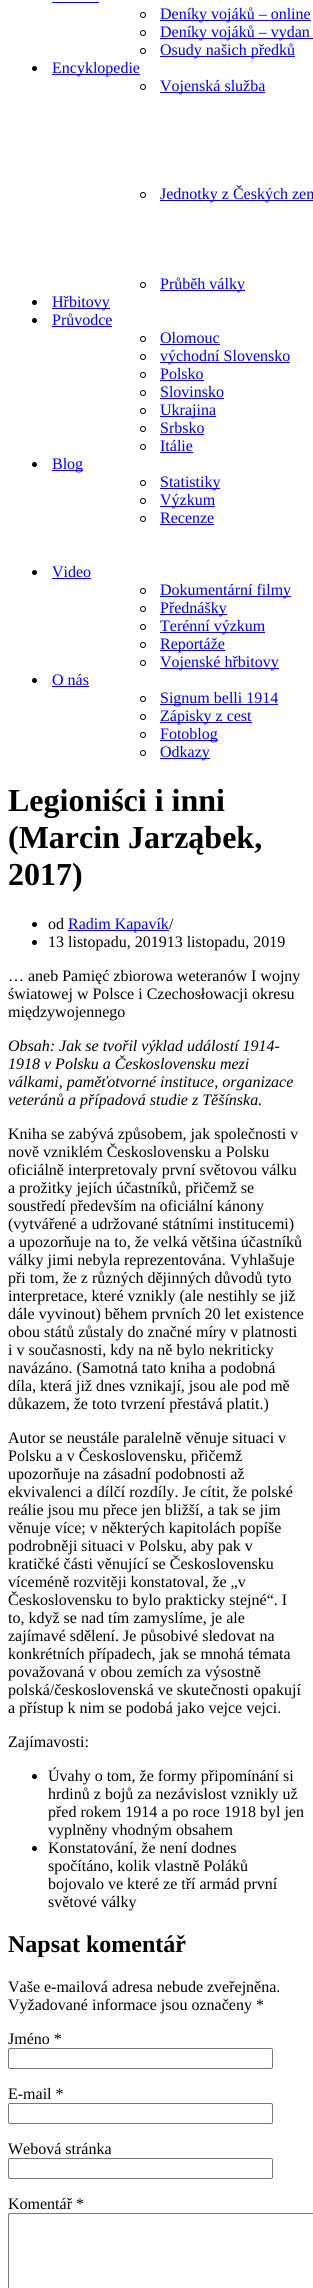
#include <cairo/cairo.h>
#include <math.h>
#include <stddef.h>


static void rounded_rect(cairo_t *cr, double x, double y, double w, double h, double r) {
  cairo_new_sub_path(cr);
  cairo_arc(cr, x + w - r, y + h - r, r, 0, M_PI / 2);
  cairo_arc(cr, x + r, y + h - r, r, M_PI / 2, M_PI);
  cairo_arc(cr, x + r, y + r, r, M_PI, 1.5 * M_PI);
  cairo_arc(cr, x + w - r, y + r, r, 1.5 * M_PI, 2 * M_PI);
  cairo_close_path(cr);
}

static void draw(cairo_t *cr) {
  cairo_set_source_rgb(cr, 1, 1, 1);
  cairo_paint(cr);
  cairo_set_source_rgb(cr, 0, 0, 238 / 255.0);
  cairo_rectangle(cr, 52, 2, 47, 1);
  cairo_fill(cr);
  cairo_arc(cr, 143, 15, 2.5, 0, 2 * M_PI);
  cairo_set_source_rgb(cr, 0, 0, 0);
  cairo_set_line_width(cr, 1);
  cairo_stroke(cr);
  cairo_set_source_rgb(cr, 0, 0, 238 / 255.0);
  cairo_rectangle(cr, 160, 20, 151, 1);
  cairo_fill(cr);
  cairo_arc(cr, 143, 33, 2.5, 0, 2 * M_PI);
  cairo_set_source_rgb(cr, 0, 0, 0);
  cairo_stroke(cr);
  cairo_set_source_rgb(cr, 0, 0, 238 / 255.0);
  cairo_rectangle(cr, 160, 38, 153, 1);
  cairo_fill(cr);
  cairo_arc(cr, 143, 51, 2.5, 0, 2 * M_PI);
  cairo_set_source_rgb(cr, 0, 0, 0);
  cairo_stroke(cr);
  cairo_set_source_rgb(cr, 0, 0, 238 / 255.0);
  cairo_rectangle(cr, 160, 56, 135, 1);
  cairo_fill(cr);
  cairo_set_source_rgb(cr, 0, 0, 0);
  cairo_arc(cr, 34.5, 68.5, 2.5, 0, 2 * M_PI);
  cairo_fill(cr);
  cairo_set_source_rgb(cr, 0, 0, 238 / 255.0);
  cairo_rectangle(cr, 52, 74, 88, 1);
  cairo_fill(cr);
  cairo_arc(cr, 143, 87, 2.5, 0, 2 * M_PI);
  cairo_set_source_rgb(cr, 0, 0, 0);
  cairo_stroke(cr);
  cairo_set_source_rgb(cr, 0, 0, 238 / 255.0);
  cairo_rectangle(cr, 160, 92, 105, 1);
  cairo_fill(cr);
  cairo_arc(cr, 143, 195, 2.5, 0, 2 * M_PI);
  cairo_set_source_rgb(cr, 0, 0, 0);
  cairo_stroke(cr);
  cairo_set_source_rgb(cr, 0, 0, 238 / 255.0);
  cairo_rectangle(cr, 160, 200, 153, 1);
  cairo_fill(cr);
  cairo_arc(cr, 143, 285, 2.5, 0, 2 * M_PI);
  cairo_set_source_rgb(cr, 0, 0, 0);
  cairo_stroke(cr);
  cairo_set_source_rgb(cr, 0, 0, 238 / 255.0);
  cairo_rectangle(cr, 160, 290, 85, 1);
  cairo_fill(cr);
  cairo_set_source_rgb(cr, 0, 0, 0);
  cairo_arc(cr, 34.5, 302.5, 2.5, 0, 2 * M_PI);
  cairo_fill(cr);
  cairo_set_source_rgb(cr, 0, 0, 238 / 255.0);
  cairo_rectangle(cr, 52, 308, 58, 1);
  cairo_fill(cr);
  cairo_set_source_rgb(cr, 0, 0, 0);
  cairo_arc(cr, 34.5, 320.5, 2.5, 0, 2 * M_PI);
  cairo_fill(cr);
  cairo_set_source_rgb(cr, 0, 0, 238 / 255.0);
  cairo_rectangle(cr, 52, 326, 60, 1);
  cairo_fill(cr);
  cairo_arc(cr, 143, 339, 2.5, 0, 2 * M_PI);
  cairo_set_source_rgb(cr, 0, 0, 0);
  cairo_stroke(cr);
  cairo_set_source_rgb(cr, 0, 0, 238 / 255.0);
  cairo_rectangle(cr, 160, 344, 60, 1);
  cairo_fill(cr);
  cairo_arc(cr, 143, 357, 2.5, 0, 2 * M_PI);
  cairo_set_source_rgb(cr, 0, 0, 0);
  cairo_stroke(cr);
  cairo_set_source_rgb(cr, 0, 0, 238 / 255.0);
  cairo_rectangle(cr, 160, 362, 130, 1);
  cairo_fill(cr);
  cairo_arc(cr, 143, 375, 2.5, 0, 2 * M_PI);
  cairo_set_source_rgb(cr, 0, 0, 0);
  cairo_stroke(cr);
  cairo_set_source_rgb(cr, 0, 0, 238 / 255.0);
  cairo_rectangle(cr, 160, 380, 44, 1);
  cairo_fill(cr);
  cairo_arc(cr, 143, 393, 2.5, 0, 2 * M_PI);
  cairo_set_source_rgb(cr, 0, 0, 0);
  cairo_stroke(cr);
  cairo_set_source_rgb(cr, 0, 0, 238 / 255.0);
  cairo_rectangle(cr, 160, 398, 64, 1);
  cairo_fill(cr);
  cairo_arc(cr, 143, 411, 2.5, 0, 2 * M_PI);
  cairo_set_source_rgb(cr, 0, 0, 0);
  cairo_stroke(cr);
  cairo_set_source_rgb(cr, 0, 0, 238 / 255.0);
  cairo_rectangle(cr, 160, 416, 56, 1);
  cairo_fill(cr);
  cairo_arc(cr, 143, 429, 2.5, 0, 2 * M_PI);
  cairo_set_source_rgb(cr, 0, 0, 0);
  cairo_stroke(cr);
  cairo_set_source_rgb(cr, 0, 0, 238 / 255.0);
  cairo_rectangle(cr, 160, 434, 44, 1);
  cairo_fill(cr);
  cairo_arc(cr, 143, 447, 2.5, 0, 2 * M_PI);
  cairo_set_source_rgb(cr, 0, 0, 0);
  cairo_stroke(cr);
  cairo_set_source_rgb(cr, 0, 0, 238 / 255.0);
  cairo_rectangle(cr, 160, 452, 33, 1);
  cairo_fill(cr);
  cairo_set_source_rgb(cr, 0, 0, 0);
  cairo_arc(cr, 34.5, 464.5, 2.5, 0, 2 * M_PI);
  cairo_fill(cr);
  cairo_set_source_rgb(cr, 0, 0, 238 / 255.0);
  cairo_rectangle(cr, 52, 470, 31, 1);
  cairo_fill(cr);
  cairo_arc(cr, 143, 483, 2.5, 0, 2 * M_PI);
  cairo_set_source_rgb(cr, 0, 0, 0);
  cairo_stroke(cr);
  cairo_set_source_rgb(cr, 0, 0, 238 / 255.0);
  cairo_rectangle(cr, 160, 488, 60, 1);
  cairo_fill(cr);
  cairo_arc(cr, 143, 501, 2.5, 0, 2 * M_PI);
  cairo_set_source_rgb(cr, 0, 0, 0);
  cairo_stroke(cr);
  cairo_set_source_rgb(cr, 0, 0, 238 / 255.0);
  cairo_rectangle(cr, 160, 506, 55, 1);
  cairo_fill(cr);
  cairo_arc(cr, 143, 519, 2.5, 0, 2 * M_PI);
  cairo_set_source_rgb(cr, 0, 0, 0);
  cairo_stroke(cr);
  cairo_set_source_rgb(cr, 0, 0, 238 / 255.0);
  cairo_rectangle(cr, 160, 524, 54, 1);
  cairo_fill(cr);
  cairo_set_source_rgb(cr, 0, 0, 0);
  cairo_arc(cr, 34.5, 572.5, 2.5, 0, 2 * M_PI);
  cairo_fill(cr);
  cairo_set_source_rgb(cr, 0, 0, 238 / 255.0);
  cairo_rectangle(cr, 52, 578, 39, 1);
  cairo_fill(cr);
  cairo_arc(cr, 143, 591, 2.5, 0, 2 * M_PI);
  cairo_set_source_rgb(cr, 0, 0, 0);
  cairo_stroke(cr);
  cairo_set_source_rgb(cr, 0, 0, 238 / 255.0);
  cairo_rectangle(cr, 160, 596, 131, 1);
  cairo_fill(cr);
  cairo_arc(cr, 143, 609, 2.5, 0, 2 * M_PI);
  cairo_set_source_rgb(cr, 0, 0, 0);
  cairo_stroke(cr);
  cairo_set_source_rgb(cr, 0, 0, 238 / 255.0);
  cairo_rectangle(cr, 160, 614, 67, 1);
  cairo_fill(cr);
  cairo_arc(cr, 143, 627, 2.5, 0, 2 * M_PI);
  cairo_set_source_rgb(cr, 0, 0, 0);
  cairo_stroke(cr);
  cairo_set_source_rgb(cr, 0, 0, 238 / 255.0);
  cairo_rectangle(cr, 160, 632, 105, 1);
  cairo_fill(cr);
  cairo_arc(cr, 143, 645, 2.5, 0, 2 * M_PI);
  cairo_set_source_rgb(cr, 0, 0, 0);
  cairo_stroke(cr);
  cairo_set_source_rgb(cr, 0, 0, 238 / 255.0);
  cairo_rectangle(cr, 160, 650, 65, 1);
  cairo_fill(cr);
  cairo_arc(cr, 143, 663, 2.5, 0, 2 * M_PI);
  cairo_set_source_rgb(cr, 0, 0, 0);
  cairo_stroke(cr);
  cairo_set_source_rgb(cr, 0, 0, 238 / 255.0);
  cairo_rectangle(cr, 160, 668, 119, 1);
  cairo_fill(cr);
  cairo_set_source_rgb(cr, 0, 0, 0);
  cairo_arc(cr, 34.5, 680.5, 2.5, 0, 2 * M_PI);
  cairo_fill(cr);
  cairo_set_source_rgb(cr, 0, 0, 238 / 255.0);
  cairo_rectangle(cr, 52, 686, 37, 1);
  cairo_fill(cr);
  cairo_arc(cr, 143, 699, 2.5, 0, 2 * M_PI);
  cairo_set_source_rgb(cr, 0, 0, 0);
  cairo_stroke(cr);
  cairo_set_source_rgb(cr, 0, 0, 238 / 255.0);
  cairo_rectangle(cr, 160, 704, 118, 1);
  cairo_fill(cr);
  cairo_arc(cr, 143, 717, 2.5, 0, 2 * M_PI);
  cairo_set_source_rgb(cr, 0, 0, 0);
  cairo_stroke(cr);
  cairo_set_source_rgb(cr, 0, 0, 238 / 255.0);
  cairo_rectangle(cr, 160, 722, 92, 1);
  cairo_fill(cr);
  cairo_arc(cr, 143, 735, 2.5, 0, 2 * M_PI);
  cairo_set_source_rgb(cr, 0, 0, 0);
  cairo_stroke(cr);
  cairo_set_source_rgb(cr, 0, 0, 238 / 255.0);
  cairo_rectangle(cr, 160, 740, 58, 1);
  cairo_fill(cr);
  cairo_arc(cr, 143, 753, 2.5, 0, 2 * M_PI);
  cairo_set_source_rgb(cr, 0, 0, 0);
  cairo_stroke(cr);
  cairo_set_source_rgb(cr, 0, 0, 238 / 255.0);
  cairo_rectangle(cr, 160, 758, 50, 1);
  cairo_fill(cr);
  cairo_set_source_rgb(cr, 0, 0, 0);
  cairo_arc(cr, 34.5, 924.5, 2.5, 0, 2 * M_PI);
  cairo_fill(cr);
  cairo_set_source_rgb(cr, 0, 0, 238 / 255.0);
  cairo_rectangle(cr, 68, 930, 101, 1);
  cairo_fill(cr);
  cairo_set_source_rgb(cr, 0, 0, 0);
  cairo_arc(cr, 34.5, 942.5, 2.5, 0, 2 * M_PI);
  cairo_fill(cr);
  cairo_arc(cr, 34.5, 1776.5, 2.5, 0, 2 * M_PI);
  cairo_fill(cr);
  cairo_arc(cr, 34.5, 1848.5, 2.5, 0, 2 * M_PI);
  cairo_fill(cr);
  rounded_rect(cr, 8.5, 2048.5, 264, 20, 1.5);
  cairo_set_source_rgb(cr, 118 / 255.0, 118 / 255.0, 118 / 255.0);
  cairo_stroke(cr);
  rounded_rect(cr, 8.5, 2103.5, 264, 20, 1.5);
  cairo_stroke(cr);
  rounded_rect(cr, 8.5, 2158.5, 264, 20, 1.5);
  cairo_stroke(cr);
  rounded_rect(cr, 8.5, 2213.5, 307, 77, 1.5);
  cairo_stroke(cr);
  cairo_select_font_face(cr, "Liberation Serif", CAIRO_FONT_SLANT_NORMAL, CAIRO_FONT_WEIGHT_NORMAL);
  cairo_set_font_size(cr, 16);
  cairo_set_source_rgb(cr, 0, 0, 238 / 255.0);
  cairo_move_to(cr, 160, 19);
  cairo_show_text(cr, "Deníky vojáků – online");
  cairo_move_to(cr, 160, 37);
  cairo_show_text(cr, "Deníky vojáků – vydan");
  cairo_move_to(cr, 160, 55);
  cairo_show_text(cr, "Osudy našich předků");
  cairo_move_to(cr, 52, 73);
  cairo_show_text(cr, "Encyklopedie");
  cairo_move_to(cr, 160, 91);
  cairo_show_text(cr, "Vojenská služba");
  cairo_move_to(cr, 160, 199);
  cairo_show_text(cr, "Jednotky z Českých zem");
  cairo_move_to(cr, 160, 289);
  cairo_show_text(cr, "Průběh války");
  cairo_move_to(cr, 52, 307);
  cairo_show_text(cr, "Hřbitovy");
  cairo_move_to(cr, 52, 325);
  cairo_show_text(cr, "Průvodce");
  cairo_move_to(cr, 160, 343);
  cairo_show_text(cr, "Olomouc");
  cairo_move_to(cr, 160, 361);
  cairo_show_text(cr, "východní Slovensko");
  cairo_move_to(cr, 160, 379);
  cairo_show_text(cr, "Polsko");
  cairo_move_to(cr, 160, 397);
  cairo_show_text(cr, "Slovinsko");
  cairo_move_to(cr, 160, 415);
  cairo_show_text(cr, "Ukrajina");
  cairo_move_to(cr, 160, 433);
  cairo_show_text(cr, "Srbsko");
  cairo_move_to(cr, 160, 451);
  cairo_show_text(cr, "Itálie");
  cairo_move_to(cr, 52, 469);
  cairo_show_text(cr, "Blog");
  cairo_move_to(cr, 160, 487);
  cairo_show_text(cr, "Statistiky");
  cairo_move_to(cr, 160, 505);
  cairo_show_text(cr, "Výzkum");
  cairo_move_to(cr, 160, 523);
  cairo_show_text(cr, "Recenze");
  cairo_move_to(cr, 52, 577);
  cairo_show_text(cr, "Video");
  cairo_move_to(cr, 160, 595);
  cairo_show_text(cr, "Dokumentární filmy");
  cairo_move_to(cr, 160, 613);
  cairo_show_text(cr, "Přednášky");
  cairo_move_to(cr, 160, 631);
  cairo_show_text(cr, "Terénní výzkum");
  cairo_move_to(cr, 160, 649);
  cairo_show_text(cr, "Reportáže");
  cairo_move_to(cr, 160, 667);
  cairo_show_text(cr, "Vojenské hřbitovy");
  cairo_move_to(cr, 52, 685);
  cairo_show_text(cr, "O nás");
  cairo_move_to(cr, 160, 703);
  cairo_show_text(cr, "Signum belli 1914");
  cairo_move_to(cr, 160, 721);
  cairo_show_text(cr, "Zápisky z cest");
  cairo_move_to(cr, 160, 739);
  cairo_show_text(cr, "Fotoblog");
  cairo_move_to(cr, 160, 757);
  cairo_show_text(cr, "Odkazy");
  cairo_select_font_face(cr, "Liberation Serif", CAIRO_FONT_SLANT_NORMAL, CAIRO_FONT_WEIGHT_BOLD);
  cairo_set_font_size(cr, 32);
  cairo_set_source_rgb(cr, 0, 0, 0);
  cairo_move_to(cr, 8, 811);
  cairo_show_text(cr, "Legioniści i inni");
  cairo_move_to(cr, 8, 848);
  cairo_show_text(cr, "(Marcin Jarząbek,");
  cairo_move_to(cr, 8, 885);
  cairo_show_text(cr, "2017)");
  cairo_select_font_face(cr, "Liberation Serif", CAIRO_FONT_SLANT_NORMAL, CAIRO_FONT_WEIGHT_NORMAL);
  cairo_set_font_size(cr, 16);
  cairo_move_to(cr, 48, 929);
  cairo_show_text(cr, "od");
  cairo_set_source_rgb(cr, 0, 0, 238 / 255.0);
  cairo_move_to(cr, 68, 929);
  cairo_show_text(cr, "Radim Kapavík");
  cairo_set_source_rgb(cr, 0, 0, 0);
  cairo_move_to(cr, 169, 929);
  cairo_show_text(cr, "/");
  cairo_move_to(cr, 48, 947);
  cairo_show_text(cr, "13 listopadu, 201913 listopadu, 2019");
  cairo_move_to(cr, 8, 981);
  cairo_show_text(cr, "… aneb Pamięć zbiorowa weteranów I wojny");
  cairo_move_to(cr, 8, 999);
  cairo_show_text(cr, "światowej w Polsce i Czechosłowacji okresu");
  cairo_move_to(cr, 8, 1017);
  cairo_show_text(cr, "międzywojennego");
  cairo_select_font_face(cr, "Liberation Serif", CAIRO_FONT_SLANT_ITALIC, CAIRO_FONT_WEIGHT_NORMAL);
  cairo_move_to(cr, 8, 1051);
  cairo_show_text(cr, "Obsah: Jak se tvořil výklad událostí 1914-");
  cairo_move_to(cr, 8, 1069);
  cairo_show_text(cr, "1918 v Polsku a Československu mezi");
  cairo_move_to(cr, 8, 1087);
  cairo_show_text(cr, "válkami, paměťotvorné instituce, organizace");
  cairo_move_to(cr, 8, 1105);
  cairo_show_text(cr, "veteránů a případová studie z Těšínska.");
  cairo_select_font_face(cr, "Liberation Serif", CAIRO_FONT_SLANT_NORMAL, CAIRO_FONT_WEIGHT_NORMAL);
  cairo_move_to(cr, 8, 1139);
  cairo_show_text(cr, "Kniha se zabývá způsobem, jak společnosti v");
  cairo_move_to(cr, 8, 1157);
  cairo_show_text(cr, "nově vzniklém Československu a Polsku");
  cairo_move_to(cr, 8, 1175);
  cairo_show_text(cr, "oficiálně interpretovaly první světovou válku");
  cairo_move_to(cr, 8, 1193);
  cairo_show_text(cr, "a prožitky jejích účastníků, přičemž se");
  cairo_move_to(cr, 8, 1211);
  cairo_show_text(cr, "soustředí především na oficiální kánony");
  cairo_move_to(cr, 8, 1229);
  cairo_show_text(cr, "(vytvářené a udržované státními institucemi)");
  cairo_move_to(cr, 8, 1247);
  cairo_show_text(cr, "a upozorňuje na to, že velká většina účastníků");
  cairo_move_to(cr, 8, 1265);
  cairo_show_text(cr, "války jimi nebyla reprezentována. Vyhlašuje");
  cairo_move_to(cr, 8, 1283);
  cairo_show_text(cr, "při tom, že z různých dějinných důvodů tyto");
  cairo_move_to(cr, 8, 1301);
  cairo_show_text(cr, "interpretace, které vznikly (ale nestihly se již");
  cairo_move_to(cr, 8, 1319);
  cairo_show_text(cr, "dále vyvinout) během prvních 20 let existence");
  cairo_move_to(cr, 8, 1337);
  cairo_show_text(cr, "obou států zůstaly do značné míry v platnosti");
  cairo_move_to(cr, 8, 1355);
  cairo_show_text(cr, "i v současnosti, kdy na ně bylo nekriticky");
  cairo_move_to(cr, 8, 1373);
  cairo_show_text(cr, "navázáno. (Samotná tato kniha a podobná");
  cairo_move_to(cr, 8, 1391);
  cairo_show_text(cr, "díla, která již dnes vznikají, jsou ale pod mě");
  cairo_move_to(cr, 8, 1409);
  cairo_show_text(cr, "důkazem, že toto tvrzení přestává platit.)");
  cairo_move_to(cr, 8, 1443);
  cairo_show_text(cr, "Autor se neustále paralelně věnuje situaci v");
  cairo_move_to(cr, 8, 1461);
  cairo_show_text(cr, "Polsku a v Československu, přičemž");
  cairo_move_to(cr, 8, 1479);
  cairo_show_text(cr, "upozorňuje na zásadní podobnosti až");
  cairo_move_to(cr, 8, 1497);
  cairo_show_text(cr, "ekvivalenci a dílčí rozdíly. Je cítit, že polské");
  cairo_move_to(cr, 8, 1515);
  cairo_show_text(cr, "reálie jsou mu přece jen bližší, a tak se jim");
  cairo_move_to(cr, 8, 1533);
  cairo_show_text(cr, "věnuje více; v některých kapitolách popíše");
  cairo_move_to(cr, 8, 1551);
  cairo_show_text(cr, "podrobněji situaci v Polsku, aby pak v");
  cairo_move_to(cr, 8, 1569);
  cairo_show_text(cr, "kratičké části věnující se Československu");
  cairo_move_to(cr, 8, 1587);
  cairo_show_text(cr, "víceméně rozvitěji konstatoval, že „v");
  cairo_move_to(cr, 8, 1605);
  cairo_show_text(cr, "Československu to bylo prakticky stejné“. I");
  cairo_move_to(cr, 8, 1623);
  cairo_show_text(cr, "to, když se nad tím zamyslíme, je ale");
  cairo_move_to(cr, 8, 1641);
  cairo_show_text(cr, "zajímavé sdělení. Je působivé sledovat na");
  cairo_move_to(cr, 8, 1659);
  cairo_show_text(cr, "konkrétních případech, jak se mnohá témata");
  cairo_move_to(cr, 8, 1677);
  cairo_show_text(cr, "považovaná v obou zemích za výsostně");
  cairo_move_to(cr, 8, 1695);
  cairo_show_text(cr, "polská/československá ve skutečnosti opakují");
  cairo_move_to(cr, 8, 1713);
  cairo_show_text(cr, "a přístup k nim se podobá jako vejce vejci.");
  cairo_move_to(cr, 8, 1747);
  cairo_show_text(cr, "Zajímavosti:");
  cairo_move_to(cr, 48, 1781);
  cairo_show_text(cr, "Úvahy o tom, že formy připomínání si");
  cairo_move_to(cr, 48, 1799);
  cairo_show_text(cr, "hrdinů z bojů za nezávislost vznikly už");
  cairo_move_to(cr, 48, 1817);
  cairo_show_text(cr, "před rokem 1914 a po roce 1918 byl jen");
  cairo_move_to(cr, 48, 1835);
  cairo_show_text(cr, "vyplněny vhodným obsahem");
  cairo_move_to(cr, 48, 1853);
  cairo_show_text(cr, "Konstatování, že není dodnes");
  cairo_move_to(cr, 48, 1871);
  cairo_show_text(cr, "spočítáno, kolik vlastně Poláků");
  cairo_move_to(cr, 48, 1889);
  cairo_show_text(cr, "bojovalo ve které ze tří armád první");
  cairo_move_to(cr, 48, 1907);
  cairo_show_text(cr, "světové války");
  cairo_select_font_face(cr, "Liberation Serif", CAIRO_FONT_SLANT_NORMAL, CAIRO_FONT_WEIGHT_BOLD);
  cairo_set_font_size(cr, 24);
  cairo_move_to(cr, 8, 1952);
  cairo_show_text(cr, "Napsat komentář");
  cairo_select_font_face(cr, "Liberation Serif", CAIRO_FONT_SLANT_NORMAL, CAIRO_FONT_WEIGHT_NORMAL);
  cairo_set_font_size(cr, 16);
  cairo_move_to(cr, 8, 1992);
  cairo_show_text(cr, "Vaše e-mailová adresa nebude zveřejněna.");
  cairo_move_to(cr, 8, 2010);
  cairo_show_text(cr, "Vyžadované informace jsou označeny *");
  cairo_move_to(cr, 8, 2044);
  cairo_show_text(cr, "Jméno *");
  cairo_move_to(cr, 8, 2099);
  cairo_show_text(cr, "E-mail *");
  cairo_move_to(cr, 8, 2154);
  cairo_show_text(cr, "Webová stránka");
  cairo_move_to(cr, 8, 2209);
  cairo_show_text(cr, "Komentář *");
}

int main(void) {
  cairo_surface_t *surface = cairo_image_surface_create(CAIRO_FORMAT_RGB24, 313, 2288);
  cairo_t *cr = cairo_create(surface);
  cairo_font_options_t *options = cairo_font_options_create();
  cairo_font_options_set_hint_metrics(options, CAIRO_HINT_METRICS_OFF);
  cairo_font_options_set_hint_style(options, CAIRO_HINT_STYLE_NONE);
  cairo_set_font_options(cr, options);
  cairo_set_miter_limit(cr, 4);
  draw(cr);
  cairo_surface_write_to_png(surface, "out.png");
  cairo_font_options_destroy(options);
  cairo_destroy(cr);
  cairo_surface_destroy(surface);
  return 0;
}
